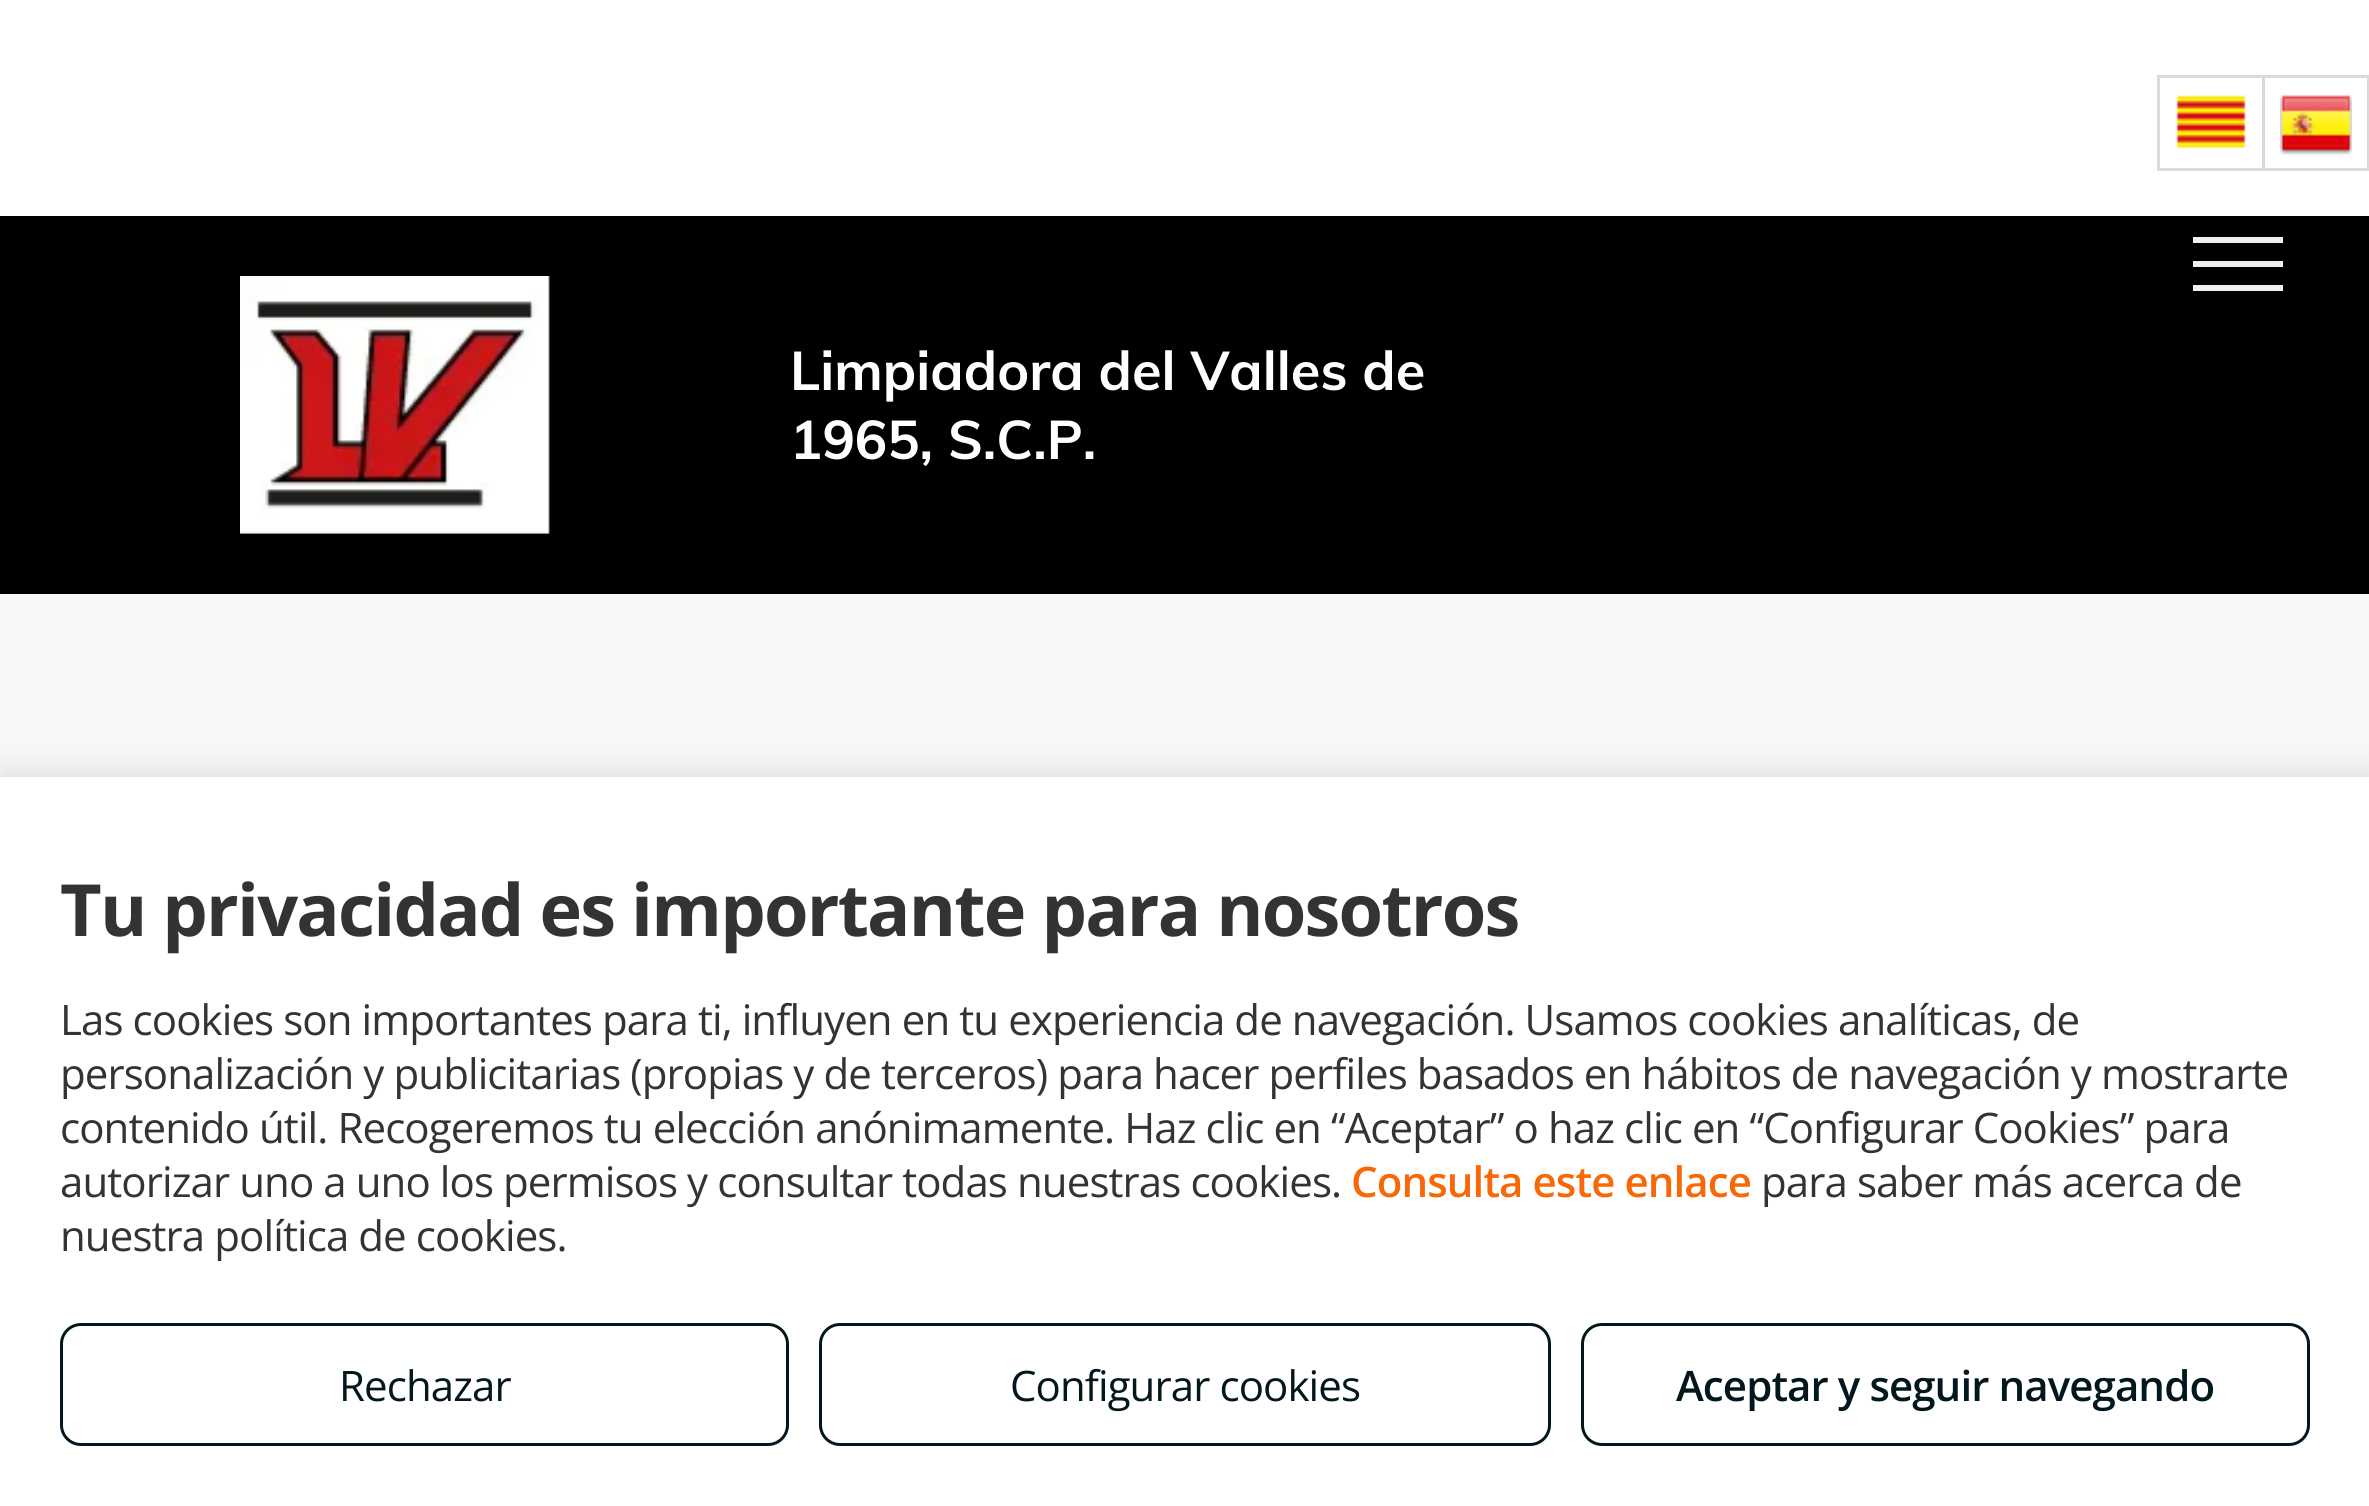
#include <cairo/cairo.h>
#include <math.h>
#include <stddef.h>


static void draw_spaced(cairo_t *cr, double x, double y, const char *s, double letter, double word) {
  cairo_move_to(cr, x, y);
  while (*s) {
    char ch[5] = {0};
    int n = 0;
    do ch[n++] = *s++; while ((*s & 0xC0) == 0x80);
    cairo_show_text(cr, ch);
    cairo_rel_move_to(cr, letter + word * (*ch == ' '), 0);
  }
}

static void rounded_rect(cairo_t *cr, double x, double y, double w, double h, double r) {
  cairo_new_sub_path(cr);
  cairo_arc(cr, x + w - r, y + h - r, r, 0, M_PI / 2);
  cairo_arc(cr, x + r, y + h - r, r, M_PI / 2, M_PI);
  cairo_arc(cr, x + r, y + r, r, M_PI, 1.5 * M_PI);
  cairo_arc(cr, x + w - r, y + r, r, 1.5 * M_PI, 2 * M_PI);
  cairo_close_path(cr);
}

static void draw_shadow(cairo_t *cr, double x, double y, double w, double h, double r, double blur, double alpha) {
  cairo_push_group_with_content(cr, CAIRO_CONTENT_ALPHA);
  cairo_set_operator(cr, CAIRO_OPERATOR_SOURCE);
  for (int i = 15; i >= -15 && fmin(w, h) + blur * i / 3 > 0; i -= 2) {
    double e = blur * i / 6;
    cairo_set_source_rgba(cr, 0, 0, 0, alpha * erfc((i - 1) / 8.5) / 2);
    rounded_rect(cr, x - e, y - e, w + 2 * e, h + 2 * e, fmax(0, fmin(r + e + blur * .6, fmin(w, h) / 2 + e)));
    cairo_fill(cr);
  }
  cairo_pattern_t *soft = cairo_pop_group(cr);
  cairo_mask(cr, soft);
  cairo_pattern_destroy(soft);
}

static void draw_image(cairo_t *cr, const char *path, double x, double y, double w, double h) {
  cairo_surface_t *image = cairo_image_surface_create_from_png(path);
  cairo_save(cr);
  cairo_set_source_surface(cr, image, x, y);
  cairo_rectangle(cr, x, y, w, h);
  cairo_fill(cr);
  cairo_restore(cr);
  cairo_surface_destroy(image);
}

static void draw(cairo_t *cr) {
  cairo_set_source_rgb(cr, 1, 1, 1);
  cairo_paint(cr);
  cairo_set_source_rgb(cr, 0, 0, 0);
  cairo_rectangle(cr, 0, 216, 2369, 378);
  cairo_fill(cr);
  cairo_set_source_rgb(cr, 240 / 255.0, 240 / 255.0, 240 / 255.0);
  cairo_rectangle(cr, 2193, 237, 90, 6);
  cairo_fill(cr);
  cairo_rectangle(cr, 2193, 261, 90, 6);
  cairo_fill(cr);
  cairo_rectangle(cr, 2193, 285, 90, 6);
  cairo_fill(cr);
  cairo_set_source_rgb(cr, 218 / 255.0, 218 / 255.0, 218 / 255.0);
  cairo_rectangle(cr, 2157, 75, 105, 3);
  cairo_fill(cr);
  cairo_rectangle(cr, 2157, 168, 105, 3);
  cairo_fill(cr);
  cairo_rectangle(cr, 2157, 75, 3, 96);
  cairo_fill(cr);
  draw_image(cr, "images/1.png", 2176, 95, 70, 54);
  cairo_rectangle(cr, 2263.5, 76.5, 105, 93);
  cairo_set_line_width(cr, 3);
  cairo_stroke(cr);
  draw_image(cr, "images/2.png", 2280, 94, 72, 61);
  draw_image(cr, "images/3.png", 240, 276, 310, 258);
  cairo_set_source_rgb(cr, 247 / 255.0, 247 / 255.0, 247 / 255.0);
  cairo_rectangle(cr, 0, 594, 2369, 183);
  cairo_fill(cr);
  cairo_set_source_rgb(cr, 0, 0, 0);
  draw_shadow(cr, 0, 771, 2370, 729, 0, 15, 0.1);
  cairo_set_source_rgb(cr, 1, 1, 1);
  cairo_rectangle(cr, 0, 777, 2369, 729);
  cairo_fill(cr);
  rounded_rect(cr, 61.5, 1324.5, 726, 120, 19.5);
  cairo_set_source_rgb(cr, 3 / 255.0, 24 / 255.0, 30 / 255.0);
  cairo_stroke(cr);
  rounded_rect(cr, 820.5, 1324.5, 729, 120, 19.5);
  cairo_stroke(cr);
  rounded_rect(cr, 1582.5, 1324.5, 726, 120, 19.5);
  cairo_stroke(cr);
  cairo_select_font_face(cr, "Muli", CAIRO_FONT_SLANT_NORMAL, CAIRO_FONT_WEIGHT_BOLD);
  cairo_set_font_size(cr, 54);
  cairo_set_source_rgb(cr, 1, 1, 1);
  cairo_move_to(cr, 790, 390);
  cairo_show_text(cr, "Limpiadora del Valles de");
  cairo_move_to(cr, 790, 459);
  cairo_show_text(cr, "1965, S.C.P.");
  cairo_select_font_face(cr, "Open Sans", CAIRO_FONT_SLANT_NORMAL, CAIRO_FONT_WEIGHT_BOLD);
  cairo_set_font_size(cr, 72);
  cairo_set_source_rgb(cr, 51 / 255.0, 51 / 255.0, 51 / 255.0);
  draw_spaced(cr, 60, 936, "Tu privacidad es importante para nosotros", -1.8, 0);
  cairo_select_font_face(cr, "Open Sans", CAIRO_FONT_SLANT_NORMAL, CAIRO_FONT_WEIGHT_NORMAL);
  cairo_set_font_size(cr, 42);
  draw_spaced(cr, 60, 1035, "Las cookies son importantes para ti, influyen en tu experiencia de navegación. Usamos cookies analíticas, de", -0.9, 0);
  draw_spaced(cr, 60, 1089, "personalización y publicitarias (propias y de terceros) para hacer perfiles basados en hábitos de navegación y mostrarte", -0.9, 0);
  draw_spaced(cr, 60, 1143, "contenido útil. Recogeremos tu elección anónimamente. Haz clic en “Aceptar” o haz clic en “Configurar Cookies” para", -0.9, 0);
  draw_spaced(cr, 60, 1197, "autorizar uno a uno los permisos y consultar todas nuestras cookies.", -0.9, 0);
  cairo_select_font_face(cr, "Open Sans SemiBold", CAIRO_FONT_SLANT_NORMAL, CAIRO_FONT_WEIGHT_NORMAL);
  cairo_set_source_rgb(cr, 248 / 255.0, 104 / 255.0, 6 / 255.0);
  draw_spaced(cr, 1351, 1197, "Consulta este enlace", -0.9, 0);
  cairo_select_font_face(cr, "Open Sans", CAIRO_FONT_SLANT_NORMAL, CAIRO_FONT_WEIGHT_NORMAL);
  cairo_set_source_rgb(cr, 51 / 255.0, 51 / 255.0, 51 / 255.0);
  draw_spaced(cr, 1761, 1197, "para saber más acerca de", -0.9, 0);
  draw_spaced(cr, 60, 1251, "nuestra política de cookies.", -0.9, 0);
  cairo_set_source_rgb(cr, 3 / 255.0, 24 / 255.0, 30 / 255.0);
  draw_spaced(cr, 339, 1401, "Rechazar", -0.9, 0);
  draw_spaced(cr, 1010, 1401, "Configurar cookies", -0.9, 0);
  cairo_select_font_face(cr, "Open Sans SemiBold", CAIRO_FONT_SLANT_NORMAL, CAIRO_FONT_WEIGHT_NORMAL);
  draw_spaced(cr, 1676, 1401, "Aceptar y seguir navegando", -0.9, 0);
}

int main(void) {
  cairo_surface_t *surface = cairo_image_surface_create(CAIRO_FORMAT_RGB24, 2369, 1506);
  cairo_t *cr = cairo_create(surface);
  cairo_font_options_t *options = cairo_font_options_create();
  cairo_font_options_set_hint_metrics(options, CAIRO_HINT_METRICS_OFF);
  cairo_font_options_set_hint_style(options, CAIRO_HINT_STYLE_NONE);
  cairo_set_font_options(cr, options);
  cairo_set_miter_limit(cr, 4);
  draw(cr);
  cairo_surface_write_to_png(surface, "out.png");
  cairo_font_options_destroy(options);
  cairo_destroy(cr);
  cairo_surface_destroy(surface);
  return 0;
}
